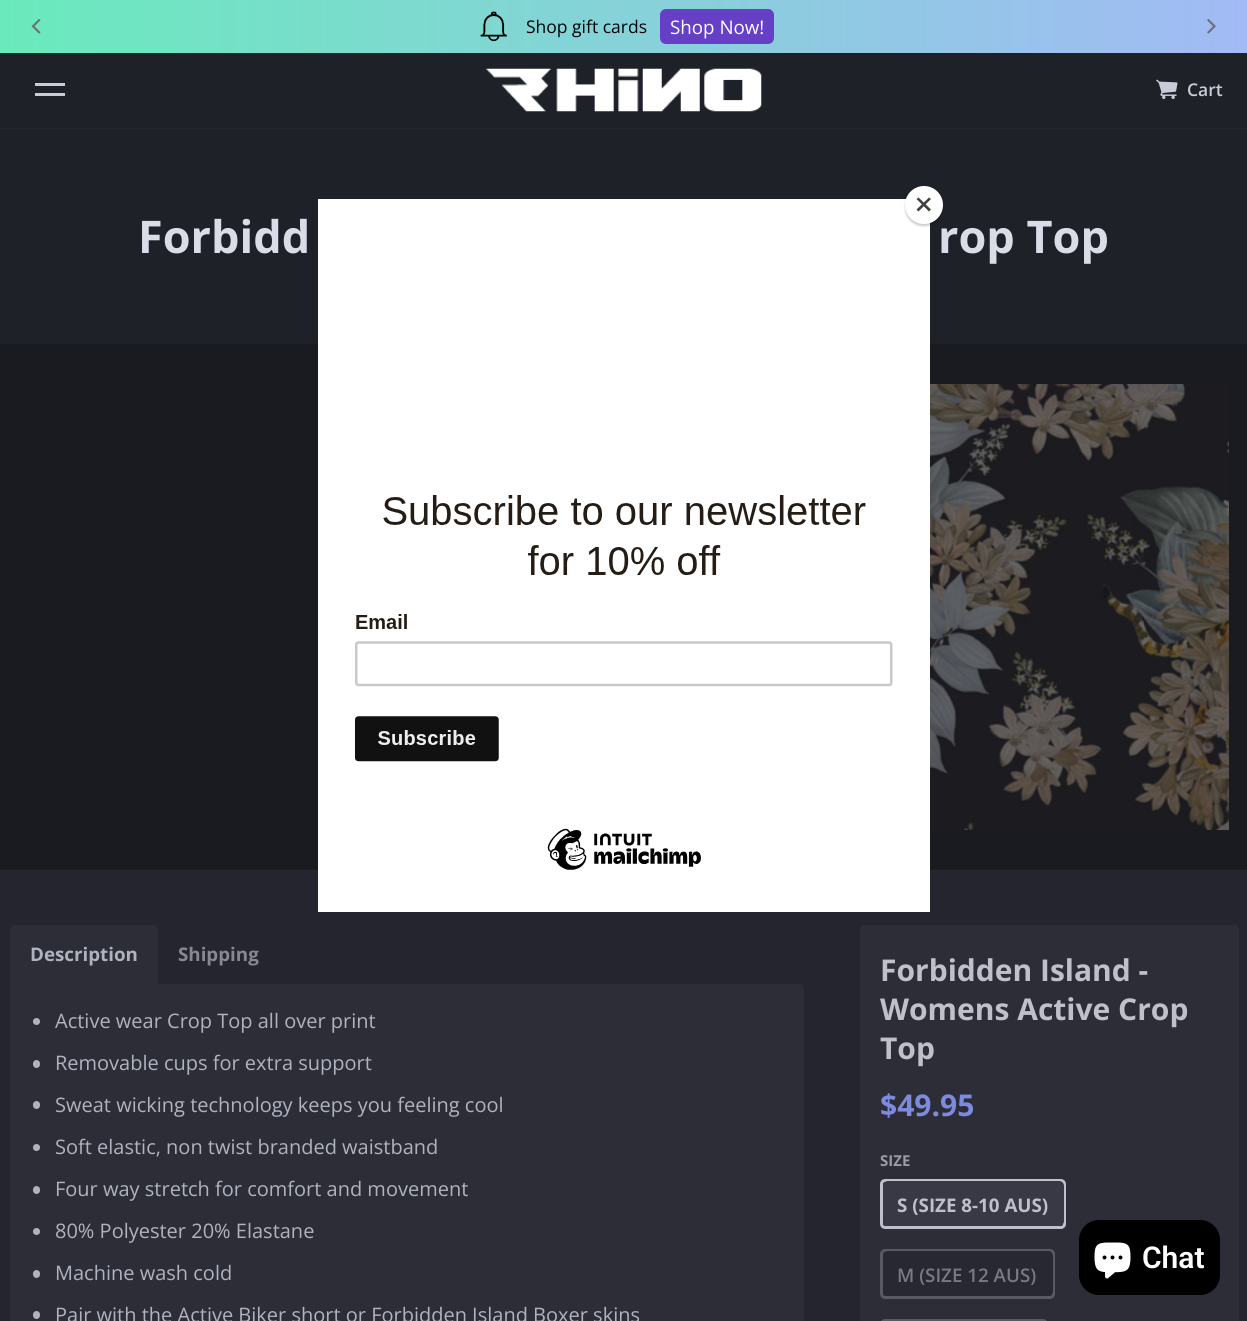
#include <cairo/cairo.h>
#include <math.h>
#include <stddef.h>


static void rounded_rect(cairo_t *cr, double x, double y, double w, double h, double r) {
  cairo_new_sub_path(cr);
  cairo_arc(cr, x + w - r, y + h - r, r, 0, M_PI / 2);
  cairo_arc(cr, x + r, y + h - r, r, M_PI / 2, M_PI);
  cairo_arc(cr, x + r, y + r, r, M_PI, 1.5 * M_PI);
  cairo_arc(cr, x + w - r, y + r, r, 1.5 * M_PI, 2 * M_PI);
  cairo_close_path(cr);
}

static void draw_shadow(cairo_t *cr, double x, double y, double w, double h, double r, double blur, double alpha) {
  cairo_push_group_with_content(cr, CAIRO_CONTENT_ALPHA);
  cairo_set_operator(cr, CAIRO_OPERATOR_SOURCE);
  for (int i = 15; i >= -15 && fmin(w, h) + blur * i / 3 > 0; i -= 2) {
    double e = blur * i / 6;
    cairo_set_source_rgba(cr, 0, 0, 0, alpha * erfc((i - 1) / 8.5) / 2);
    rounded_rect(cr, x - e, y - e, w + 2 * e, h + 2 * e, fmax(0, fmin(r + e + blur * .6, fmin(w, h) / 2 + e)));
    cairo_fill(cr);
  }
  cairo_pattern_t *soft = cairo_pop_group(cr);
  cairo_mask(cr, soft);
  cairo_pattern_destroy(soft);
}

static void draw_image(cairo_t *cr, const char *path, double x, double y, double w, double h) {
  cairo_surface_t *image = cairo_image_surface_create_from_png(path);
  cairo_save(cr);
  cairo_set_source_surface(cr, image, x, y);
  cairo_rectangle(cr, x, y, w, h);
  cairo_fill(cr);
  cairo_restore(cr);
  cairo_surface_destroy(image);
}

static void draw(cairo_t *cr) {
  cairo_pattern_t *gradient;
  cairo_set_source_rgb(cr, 36 / 255.0, 37 / 255.0, 46 / 255.0);
  cairo_paint(cr);
  gradient = cairo_pattern_create_linear(0, 26, 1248, 26);
  cairo_pattern_add_color_stop_rgba(gradient, 0, 106 / 255.0, 234 / 255.0, 188 / 255.0, 1);
  cairo_pattern_add_color_stop_rgba(gradient, 1, 162 / 255.0, 186 / 255.0, 245 / 255.0, 1);
  cairo_set_source(cr, gradient);
  cairo_pattern_destroy(gradient);
  cairo_rectangle(cr, 0, 0, 1247, 53);
  cairo_fill(cr);
  draw_image(cr, "images/1.png", 31, 19, 10, 15);
  draw_image(cr, "images/2.png", 480, 11, 27, 30);
  cairo_set_source_rgb(cr, 101 / 255.0, 64 / 255.0, 199 / 255.0);
  rounded_rect(cr, 660, 9, 114, 35, 6);
  cairo_fill(cr);
  draw_image(cr, "images/3.png", 1207, 19, 9, 15);
  cairo_set_source_rgb(cr, 30 / 255.0, 33 / 255.0, 40 / 255.0);
  cairo_rectangle(cr, 0, 53, 1247, 75);
  cairo_fill(cr);
  cairo_set_source_rgb(cr, 201 / 255.0, 204 / 255.0, 214 / 255.0);
  cairo_rectangle(cr, 35, 83, 30, 3);
  cairo_fill(cr);
  cairo_rectangle(cr, 35, 93, 30, 3);
  cairo_fill(cr);
  draw_image(cr, "images/4.png", 486, 68, 276, 44);
  draw_image(cr, "images/5.png", 1156, 79, 22, 20);
  cairo_set_source_rgb(cr, 30 / 255.0, 33 / 255.0, 40 / 255.0);
  cairo_rectangle(cr, 0, 129, 1247, 215);
  cairo_fill(cr);
  cairo_set_source_rgb(cr, 26 / 255.0, 27 / 255.0, 33 / 255.0);
  cairo_rectangle(cr, 0, 344, 1247, 526);
  cairo_fill(cr);
  draw_image(cr, "images/6.png", 318, 199, 612, 713);
  cairo_set_source_rgb(cr, 0, 0, 0);
  draw_shadow(cr, 905, 189, 38, 37, 18.5, 1, 0.2);
  draw_image(cr, "images/7.png", 930, 384, 299, 446);
  cairo_set_source_rgb(cr, 44 / 255.0, 45 / 255.0, 55 / 255.0);
  cairo_new_path(cr);
  cairo_move_to(cr, 15, 925);
  cairo_line_to(cr, 153, 925);
  cairo_curve_to(cr, 156, 925, 158, 927, 158, 930);
  cairo_line_to(cr, 158, 984);
  cairo_line_to(cr, 10, 984);
  cairo_line_to(cr, 10, 930);
  cairo_curve_to(cr, 10, 927, 12, 925, 15, 925);
  cairo_close_path(cr);
  cairo_fill(cr);
  cairo_new_path(cr);
  cairo_move_to(cr, 10, 984);
  cairo_line_to(cr, 799, 984);
  cairo_curve_to(cr, 802, 984, 804, 986, 804, 989);
  cairo_line_to(cr, 804, 1321);
  cairo_curve_to(cr, 804, 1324, 802, 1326, 799, 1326);
  cairo_line_to(cr, 15, 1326);
  cairo_curve_to(cr, 12, 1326, 10, 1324, 10, 1321);
  cairo_close_path(cr);
  cairo_fill(cr);
  cairo_set_source_rgb(cr, 175 / 255.0, 179 / 255.0, 191 / 255.0);
  cairo_arc(cr, 36.5, 1021.5, 3.5, 0, 2 * M_PI);
  cairo_fill(cr);
  rounded_rect(cr, 33, 1060, 7, 8, 3.5);
  cairo_fill(cr);
  rounded_rect(cr, 33, 1101, 7, 8, 3.5);
  cairo_fill(cr);
  cairo_arc(cr, 36.5, 1147.5, 3.5, 0, 2 * M_PI);
  cairo_fill(cr);
  rounded_rect(cr, 33, 1186, 7, 8, 3.5);
  cairo_fill(cr);
  cairo_arc(cr, 36.5, 1231.5, 3.5, 0, 2 * M_PI);
  cairo_fill(cr);
  rounded_rect(cr, 33, 1270, 7, 8, 3.5);
  cairo_fill(cr);
  rounded_rect(cr, 33, 1311, 7, 8, 3.5);
  cairo_fill(cr);
  cairo_set_source_rgb(cr, 44 / 255.0, 45 / 255.0, 54 / 255.0);
  rounded_rect(cr, 860, 925, 379, 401, 5);
  cairo_fill(cr);
  rounded_rect(cr, 881.5, 1180.5, 183, 47, 3.5);
  cairo_set_source_rgb(cr, 191 / 255.0, 192 / 255.0, 204 / 255.0);
  cairo_set_line_width(cr, 3);
  cairo_stroke(cr);
  cairo_set_source_rgb(cr, 56 / 255.0, 57 / 255.0, 69 / 255.0);
  rounded_rect(cr, 883, 1181, 181, 45, 5);
  cairo_fill(cr);
  rounded_rect(cr, 881.5, 1250.5, 172, 47, 3.5);
  cairo_set_source_rgb(cr, 88 / 255.0, 89 / 255.0, 99 / 255.0);
  cairo_stroke(cr);
  cairo_set_source_rgb(cr, 39 / 255.0, 40 / 255.0, 49 / 255.0);
  rounded_rect(cr, 883, 1251, 170, 45, 5);
  cairo_fill(cr);
  rounded_rect(cr, 881.5, 1320.5, 165, 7, 3.5);
  cairo_set_source_rgb(cr, 88 / 255.0, 89 / 255.0, 99 / 255.0);
  cairo_stroke(cr);
  cairo_set_source_rgb(cr, 0, 0, 0);
  rounded_rect(cr, 1079, 1220, 141, 75, 20);
  cairo_fill(cr);
  draw_image(cr, "images/8.png", 1094, 1242, 37, 37);
  cairo_select_font_face(cr, "Open Sans", CAIRO_FONT_SLANT_NORMAL, CAIRO_FONT_WEIGHT_NORMAL);
  cairo_set_font_size(cr, 17.5);
  cairo_set_source_rgb(cr, 0, 3 / 255.0, 7 / 255.0);
  cairo_move_to(cr, 526, 33);
  cairo_show_text(cr, "Shop gift cards");
  cairo_set_font_size(cr, 18.75);
  cairo_set_source_rgb(cr, 1, 1, 1);
  cairo_move_to(cr, 670, 34);
  cairo_show_text(cr, "Shop Now!");
  cairo_select_font_face(cr, "Open Sans SemiBold", CAIRO_FONT_SLANT_NORMAL, CAIRO_FONT_WEIGHT_NORMAL);
  cairo_set_font_size(cr, 17.5);
  cairo_set_source_rgb(cr, 201 / 255.0, 204 / 255.0, 214 / 255.0);
  cairo_move_to(cr, 1187, 96);
  cairo_show_text(cr, "Cart");
  cairo_select_font_face(cr, "Open Sans", CAIRO_FONT_SLANT_NORMAL, CAIRO_FONT_WEIGHT_BOLD);
  cairo_set_font_size(cr, 45);
  cairo_set_source_rgb(cr, 218 / 255.0, 220 / 255.0, 232 / 255.0);
  cairo_move_to(cr, 138, 253);
  cairo_show_text(cr, "Forbidd");
  cairo_move_to(cr, 938, 253);
  cairo_show_text(cr, "rop Top");
  cairo_set_source_rgb(cr, 1, 1, 1);
  cairo_new_path(cr);
  cairo_arc(cr, 924, 205, 19, 0, 2 * M_PI);
  cairo_fill(cr);
  cairo_set_source_rgb(cr, 65 / 255.0, 65 / 255.0, 65 / 255.0);
  cairo_new_path(cr);
  cairo_move_to(cr, 929, 197.5);
  cairo_line_to(cr, 931, 199);
  cairo_line_to(cr, 918.5, 211.5);
  cairo_line_to(cr, 916.5, 209.5);
  cairo_close_path(cr);
  cairo_fill(cr);
  cairo_new_path(cr);
  cairo_move_to(cr, 916.5, 199);
  cairo_line_to(cr, 918.5, 197.5);
  cairo_line_to(cr, 931, 209.5);
  cairo_line_to(cr, 929, 211.5);
  cairo_close_path(cr);
  cairo_fill(cr);
  cairo_set_font_size(cr, 18.75);
  cairo_set_source_rgb(cr, 175 / 255.0, 179 / 255.0, 191 / 255.0);
  cairo_move_to(cr, 30, 961);
  cairo_show_text(cr, "Description");
  cairo_set_source_rgb(cr, 134 / 255.0, 136 / 255.0, 148 / 255.0);
  cairo_move_to(cr, 178, 961);
  cairo_show_text(cr, "Shipping");
  cairo_select_font_face(cr, "Open Sans", CAIRO_FONT_SLANT_NORMAL, CAIRO_FONT_WEIGHT_NORMAL);
  cairo_set_font_size(cr, 20);
  cairo_set_source_rgb(cr, 175 / 255.0, 179 / 255.0, 191 / 255.0);
  cairo_move_to(cr, 55, 1028);
  cairo_show_text(cr, "Active wear Crop Top all over print");
  cairo_move_to(cr, 55, 1070);
  cairo_show_text(cr, "Removable cups for extra support");
  cairo_move_to(cr, 55, 1112);
  cairo_show_text(cr, "Sweat wicking technology keeps you feeling cool");
  cairo_move_to(cr, 55, 1154);
  cairo_show_text(cr, "Soft elastic, non twist branded waistband");
  cairo_move_to(cr, 55, 1196);
  cairo_show_text(cr, "Four way stretch for comfort and movement");
  cairo_move_to(cr, 55, 1238);
  cairo_show_text(cr, "80% Polyester 20% Elastane");
  cairo_move_to(cr, 55, 1280);
  cairo_show_text(cr, "Machine wash cold");
  cairo_move_to(cr, 55, 1322);
  cairo_show_text(cr, "Pair with the Active Biker short or Forbidden Island Boxer skins");
  cairo_select_font_face(cr, "Open Sans", CAIRO_FONT_SLANT_NORMAL, CAIRO_FONT_WEIGHT_BOLD);
  cairo_set_font_size(cr, 30);
  cairo_set_source_rgb(cr, 191 / 255.0, 192 / 255.0, 204 / 255.0);
  cairo_move_to(cr, 880, 981);
  cairo_show_text(cr, "Forbidden Island -");
  cairo_move_to(cr, 880, 1020);
  cairo_show_text(cr, "Womens Active Crop");
  cairo_move_to(cr, 880, 1059);
  cairo_show_text(cr, "Top");
  cairo_set_source_rgb(cr, 124 / 255.0, 138 / 255.0, 223 / 255.0);
  cairo_move_to(cr, 880, 1116);
  cairo_show_text(cr, "$49.95");
  cairo_set_font_size(cr, 15);
  cairo_set_source_rgb(cr, 153 / 255.0, 156 / 255.0, 167 / 255.0);
  cairo_move_to(cr, 880, 1166);
  cairo_show_text(cr, "SIZE");
  cairo_set_font_size(cr, 18.75);
  cairo_set_source_rgb(cr, 191 / 255.0, 192 / 255.0, 204 / 255.0);
  cairo_move_to(cr, 897, 1212);
  cairo_show_text(cr, "S (SIZE 8-10 AUS)");
  cairo_select_font_face(cr, "Open Sans SemiBold", CAIRO_FONT_SLANT_NORMAL, CAIRO_FONT_WEIGHT_NORMAL);
  cairo_set_source_rgb(cr, 119 / 255.0, 121 / 255.0, 132 / 255.0);
  cairo_move_to(cr, 897, 1282);
  cairo_show_text(cr, "M (SIZE 12 AUS)");
  cairo_select_font_face(cr, "Roboto SemiBold", CAIRO_FONT_SLANT_NORMAL, CAIRO_FONT_WEIGHT_NORMAL);
  cairo_set_font_size(cr, 30);
  cairo_set_source_rgb(cr, 1, 1, 1);
  cairo_move_to(cr, 1142, 1268);
  cairo_show_text(cr, "Chat");
}

int main(void) {
  cairo_surface_t *surface = cairo_image_surface_create(CAIRO_FORMAT_RGB24, 1247, 1321);
  cairo_t *cr = cairo_create(surface);
  cairo_font_options_t *options = cairo_font_options_create();
  cairo_font_options_set_hint_metrics(options, CAIRO_HINT_METRICS_OFF);
  cairo_font_options_set_hint_style(options, CAIRO_HINT_STYLE_NONE);
  cairo_set_font_options(cr, options);
  cairo_set_miter_limit(cr, 4);
  draw(cr);
  cairo_surface_write_to_png(surface, "out.png");
  cairo_font_options_destroy(options);
  cairo_destroy(cr);
  cairo_surface_destroy(surface);
  return 0;
}
